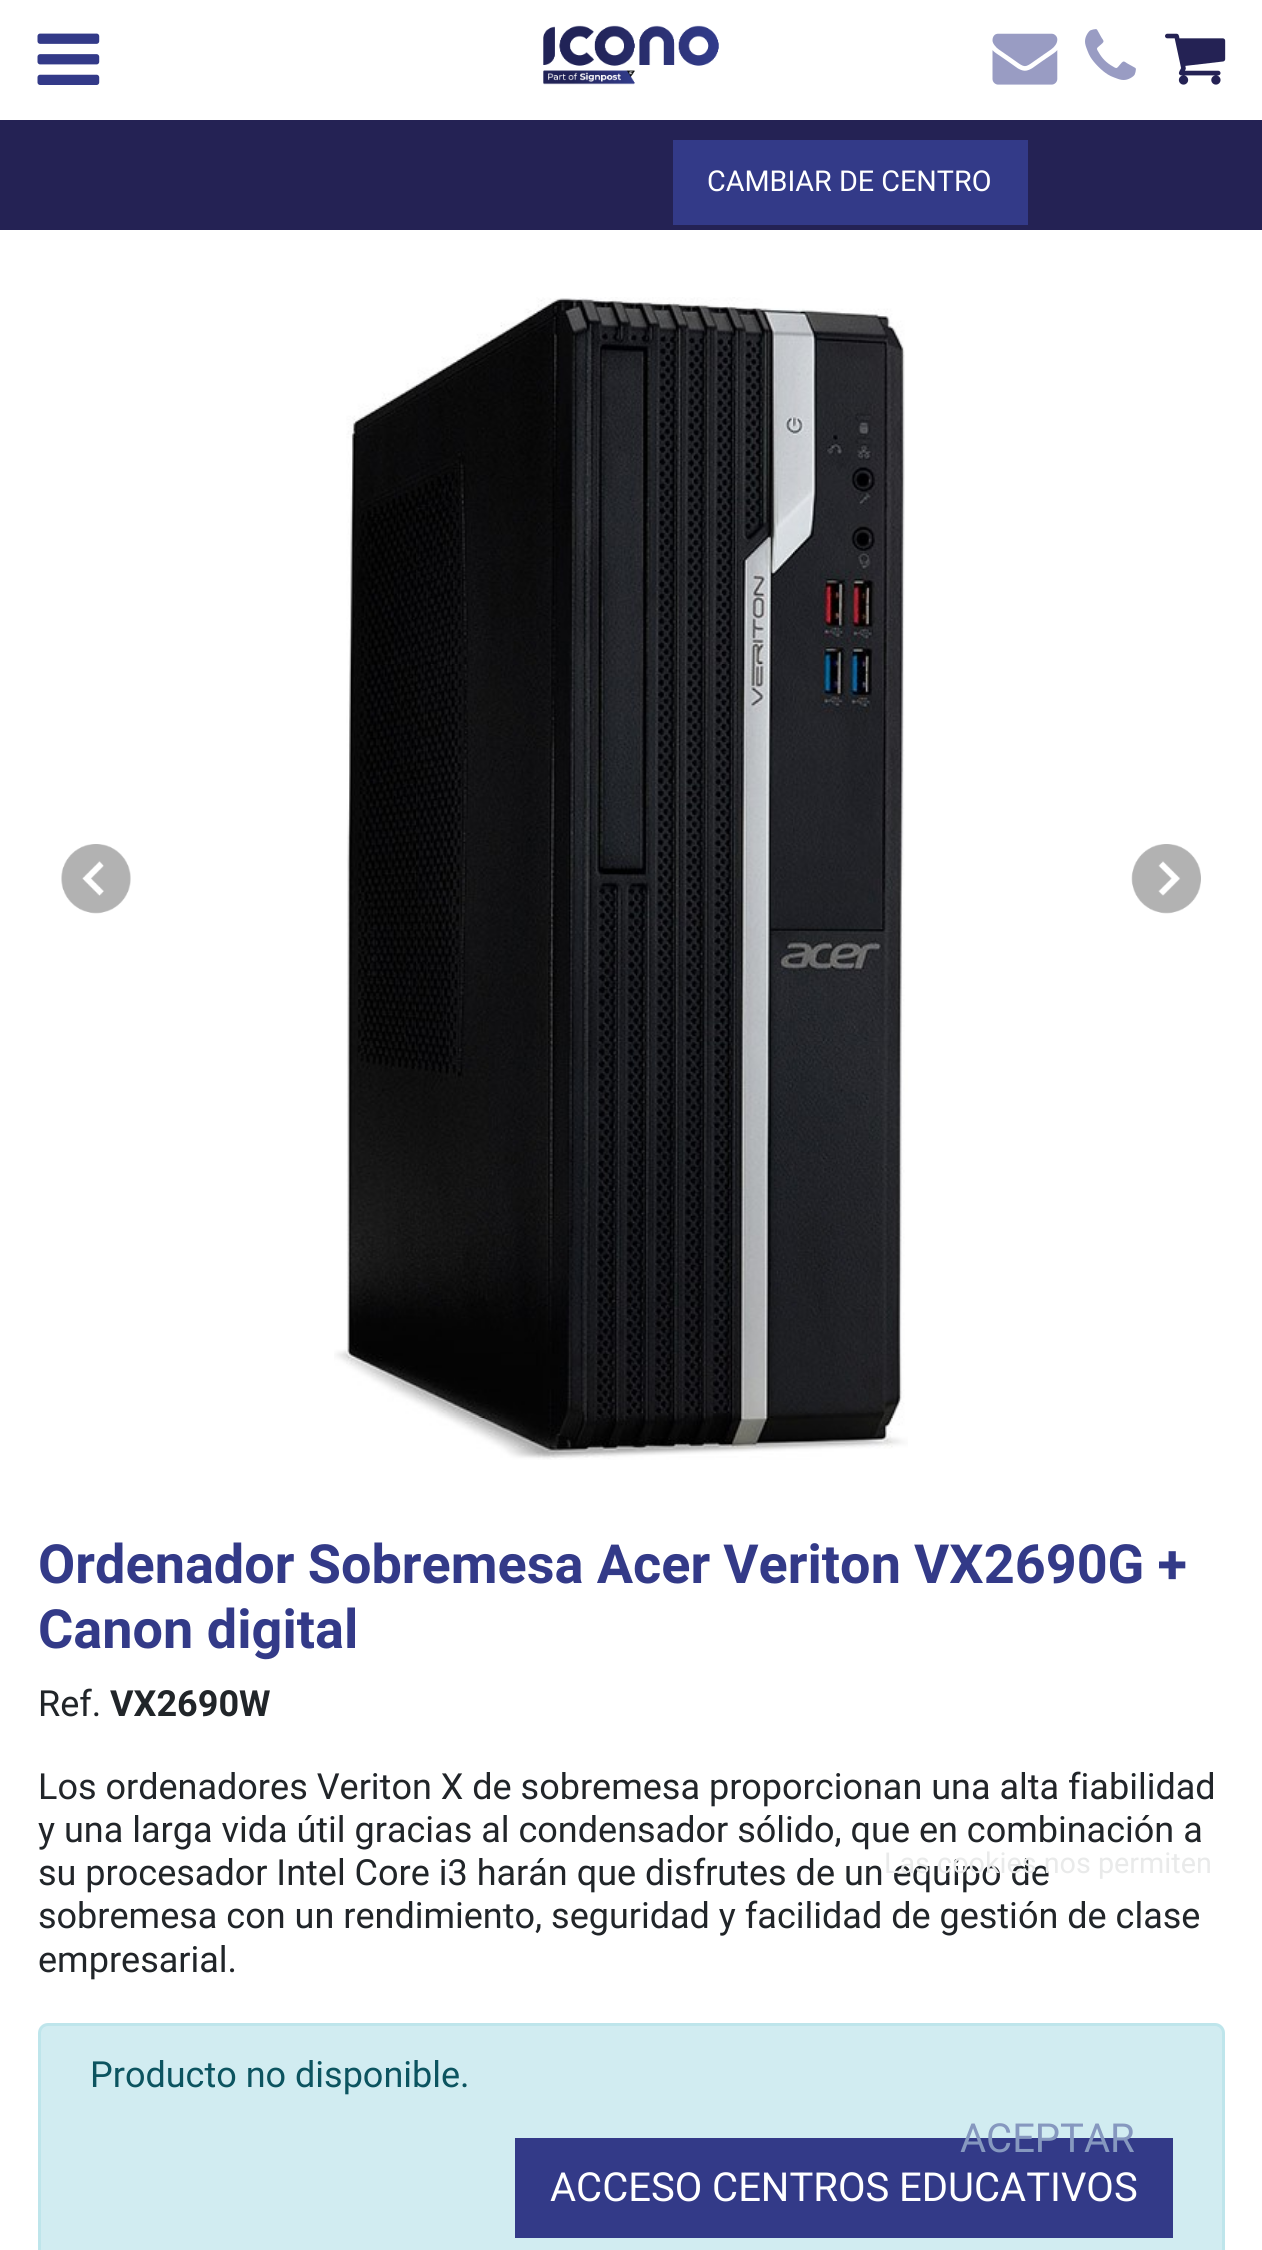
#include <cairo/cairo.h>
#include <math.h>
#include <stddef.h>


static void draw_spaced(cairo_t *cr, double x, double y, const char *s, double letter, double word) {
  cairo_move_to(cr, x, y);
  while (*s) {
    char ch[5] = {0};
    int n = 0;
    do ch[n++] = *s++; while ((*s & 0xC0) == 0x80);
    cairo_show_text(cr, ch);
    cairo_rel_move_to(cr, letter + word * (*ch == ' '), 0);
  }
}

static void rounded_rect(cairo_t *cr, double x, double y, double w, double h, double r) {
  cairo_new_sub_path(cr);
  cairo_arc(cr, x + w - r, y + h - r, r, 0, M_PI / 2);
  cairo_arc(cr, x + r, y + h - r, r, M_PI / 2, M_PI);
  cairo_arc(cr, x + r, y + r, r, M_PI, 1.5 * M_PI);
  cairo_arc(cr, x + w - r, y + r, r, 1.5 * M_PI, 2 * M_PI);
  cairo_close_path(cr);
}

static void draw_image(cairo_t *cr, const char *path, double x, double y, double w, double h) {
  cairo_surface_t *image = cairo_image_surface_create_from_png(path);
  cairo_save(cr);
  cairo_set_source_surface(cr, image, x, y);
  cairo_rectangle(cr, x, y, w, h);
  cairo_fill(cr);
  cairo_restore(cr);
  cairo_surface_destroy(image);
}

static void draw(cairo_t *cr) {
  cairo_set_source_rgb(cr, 1, 1, 1);
  cairo_paint(cr);
  draw_image(cr, "images/1.png", 37, 33, 63, 52);
  draw_image(cr, "images/2.png", 543, 25, 176, 60);
  draw_image(cr, "images/3.png", 992, 33, 66, 52);
  draw_image(cr, "images/4.png", 1085, 29, 51, 51);
  draw_image(cr, "images/5.png", 1165, 33, 61, 52);
  cairo_set_source_rgb(cr, 36 / 255.0, 34 / 255.0, 84 / 255.0);
  cairo_rectangle(cr, 0, 120, 1262, 110);
  cairo_fill(cr);
  cairo_set_source_rgb(cr, 51 / 255.0, 58 / 255.0, 136 / 255.0);
  cairo_rectangle(cr, 673, 140, 355, 85);
  cairo_fill(cr);
  draw_image(cr, "images/6.png", 61, 844, 70, 70);
  draw_image(cr, "images/7.png", 334, 297, 574, 1163);
  draw_image(cr, "images/8.png", 1131, 844, 70, 70);
  cairo_set_source_rgb(cr, 209 / 255.0, 236 / 255.0, 241 / 255.0);
  rounded_rect(cr, 39.5, 2024.5, 1184, 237, 8.5);
  cairo_fill_preserve(cr);
  cairo_set_source_rgb(cr, 190 / 255.0, 229 / 255.0, 235 / 255.0);
  cairo_set_line_width(cr, 3);
  cairo_stroke(cr);
  cairo_set_source_rgb(cr, 51 / 255.0, 58 / 255.0, 136 / 255.0);
  cairo_rectangle(cr, 515, 2138, 658, 100);
  cairo_fill(cr);
  cairo_select_font_face(cr, "Roboto", CAIRO_FONT_SLANT_NORMAL, CAIRO_FONT_WEIGHT_NORMAL);
  cairo_set_font_size(cr, 28.75);
  cairo_set_source_rgb(cr, 1, 1, 1);
  cairo_move_to(cr, 707, 191);
  cairo_show_text(cr, "CAMBIAR DE CENTRO");
  cairo_select_font_face(cr, "Roboto", CAIRO_FONT_SLANT_NORMAL, CAIRO_FONT_WEIGHT_BOLD);
  cairo_set_font_size(cr, 54);
  cairo_set_source_rgb(cr, 51 / 255.0, 58 / 255.0, 136 / 255.0);
  draw_spaced(cr, 38, 1583, "Ordenador Sobremesa Acer Veriton VX2690G +", 0, -0.25);
  cairo_move_to(cr, 38, 1648);
  cairo_show_text(cr, "Canon digital");
  cairo_select_font_face(cr, "Roboto", CAIRO_FONT_SLANT_NORMAL, CAIRO_FONT_WEIGHT_NORMAL);
  cairo_set_font_size(cr, 36);
  cairo_set_source_rgb(cr, 33 / 255.0, 37 / 255.0, 41 / 255.0);
  cairo_move_to(cr, 38, 1716);
  cairo_show_text(cr, "Ref.");
  cairo_select_font_face(cr, "Roboto", CAIRO_FONT_SLANT_NORMAL, CAIRO_FONT_WEIGHT_BOLD);
  cairo_move_to(cr, 110, 1716);
  cairo_show_text(cr, "VX2690W");
  cairo_select_font_face(cr, "Roboto", CAIRO_FONT_SLANT_NORMAL, CAIRO_FONT_WEIGHT_NORMAL);
  cairo_move_to(cr, 38, 1799);
  cairo_show_text(cr, "Los ordenadores Veriton X de sobremesa proporcionan una alta fiabilidad");
  cairo_move_to(cr, 38, 1842);
  cairo_show_text(cr, "y una larga vida útil gracias al condensador sólido, que en combinación a");
  cairo_move_to(cr, 38, 1885);
  cairo_show_text(cr, "su procesador Intel Core i3 harán que disfrutes de un equipo de");
  cairo_move_to(cr, 38, 1928);
  cairo_show_text(cr, "sobremesa con un rendimiento, seguridad y facilidad de gestión de clase");
  cairo_move_to(cr, 38, 1972);
  cairo_show_text(cr, "empresarial.");
  cairo_set_source_rgb(cr, 12 / 255.0, 84 / 255.0, 96 / 255.0);
  cairo_move_to(cr, 90, 2087);
  cairo_show_text(cr, "Producto no disponible.");
  cairo_set_font_size(cr, 40);
  cairo_set_source_rgb(cr, 1, 1, 1);
  cairo_move_to(cr, 550, 2201);
  cairo_show_text(cr, "ACCESO CENTROS EDUCATIVOS");
  cairo_set_font_size(cr, 28.75);
  cairo_set_source_rgb(cr, 233 / 255.0, 234 / 255.0, 234 / 255.0);
  cairo_move_to(cr, 884, 1873);
  cairo_show_text(cr, "Las cookies nos permiten");
  cairo_set_font_size(cr, 40);
  cairo_set_source_rgb(cr, 134 / 255.0, 152 / 255.0, 191 / 255.0);
  cairo_move_to(cr, 960, 2152);
  cairo_show_text(cr, "ACEPTAR");
}

int main(void) {
  cairo_surface_t *surface = cairo_image_surface_create(CAIRO_FORMAT_RGB24, 1262, 2250);
  cairo_t *cr = cairo_create(surface);
  cairo_font_options_t *options = cairo_font_options_create();
  cairo_font_options_set_hint_metrics(options, CAIRO_HINT_METRICS_OFF);
  cairo_font_options_set_hint_style(options, CAIRO_HINT_STYLE_NONE);
  cairo_set_font_options(cr, options);
  cairo_set_miter_limit(cr, 4);
  draw(cr);
  cairo_surface_write_to_png(surface, "out.png");
  cairo_font_options_destroy(options);
  cairo_destroy(cr);
  cairo_surface_destroy(surface);
  return 0;
}
